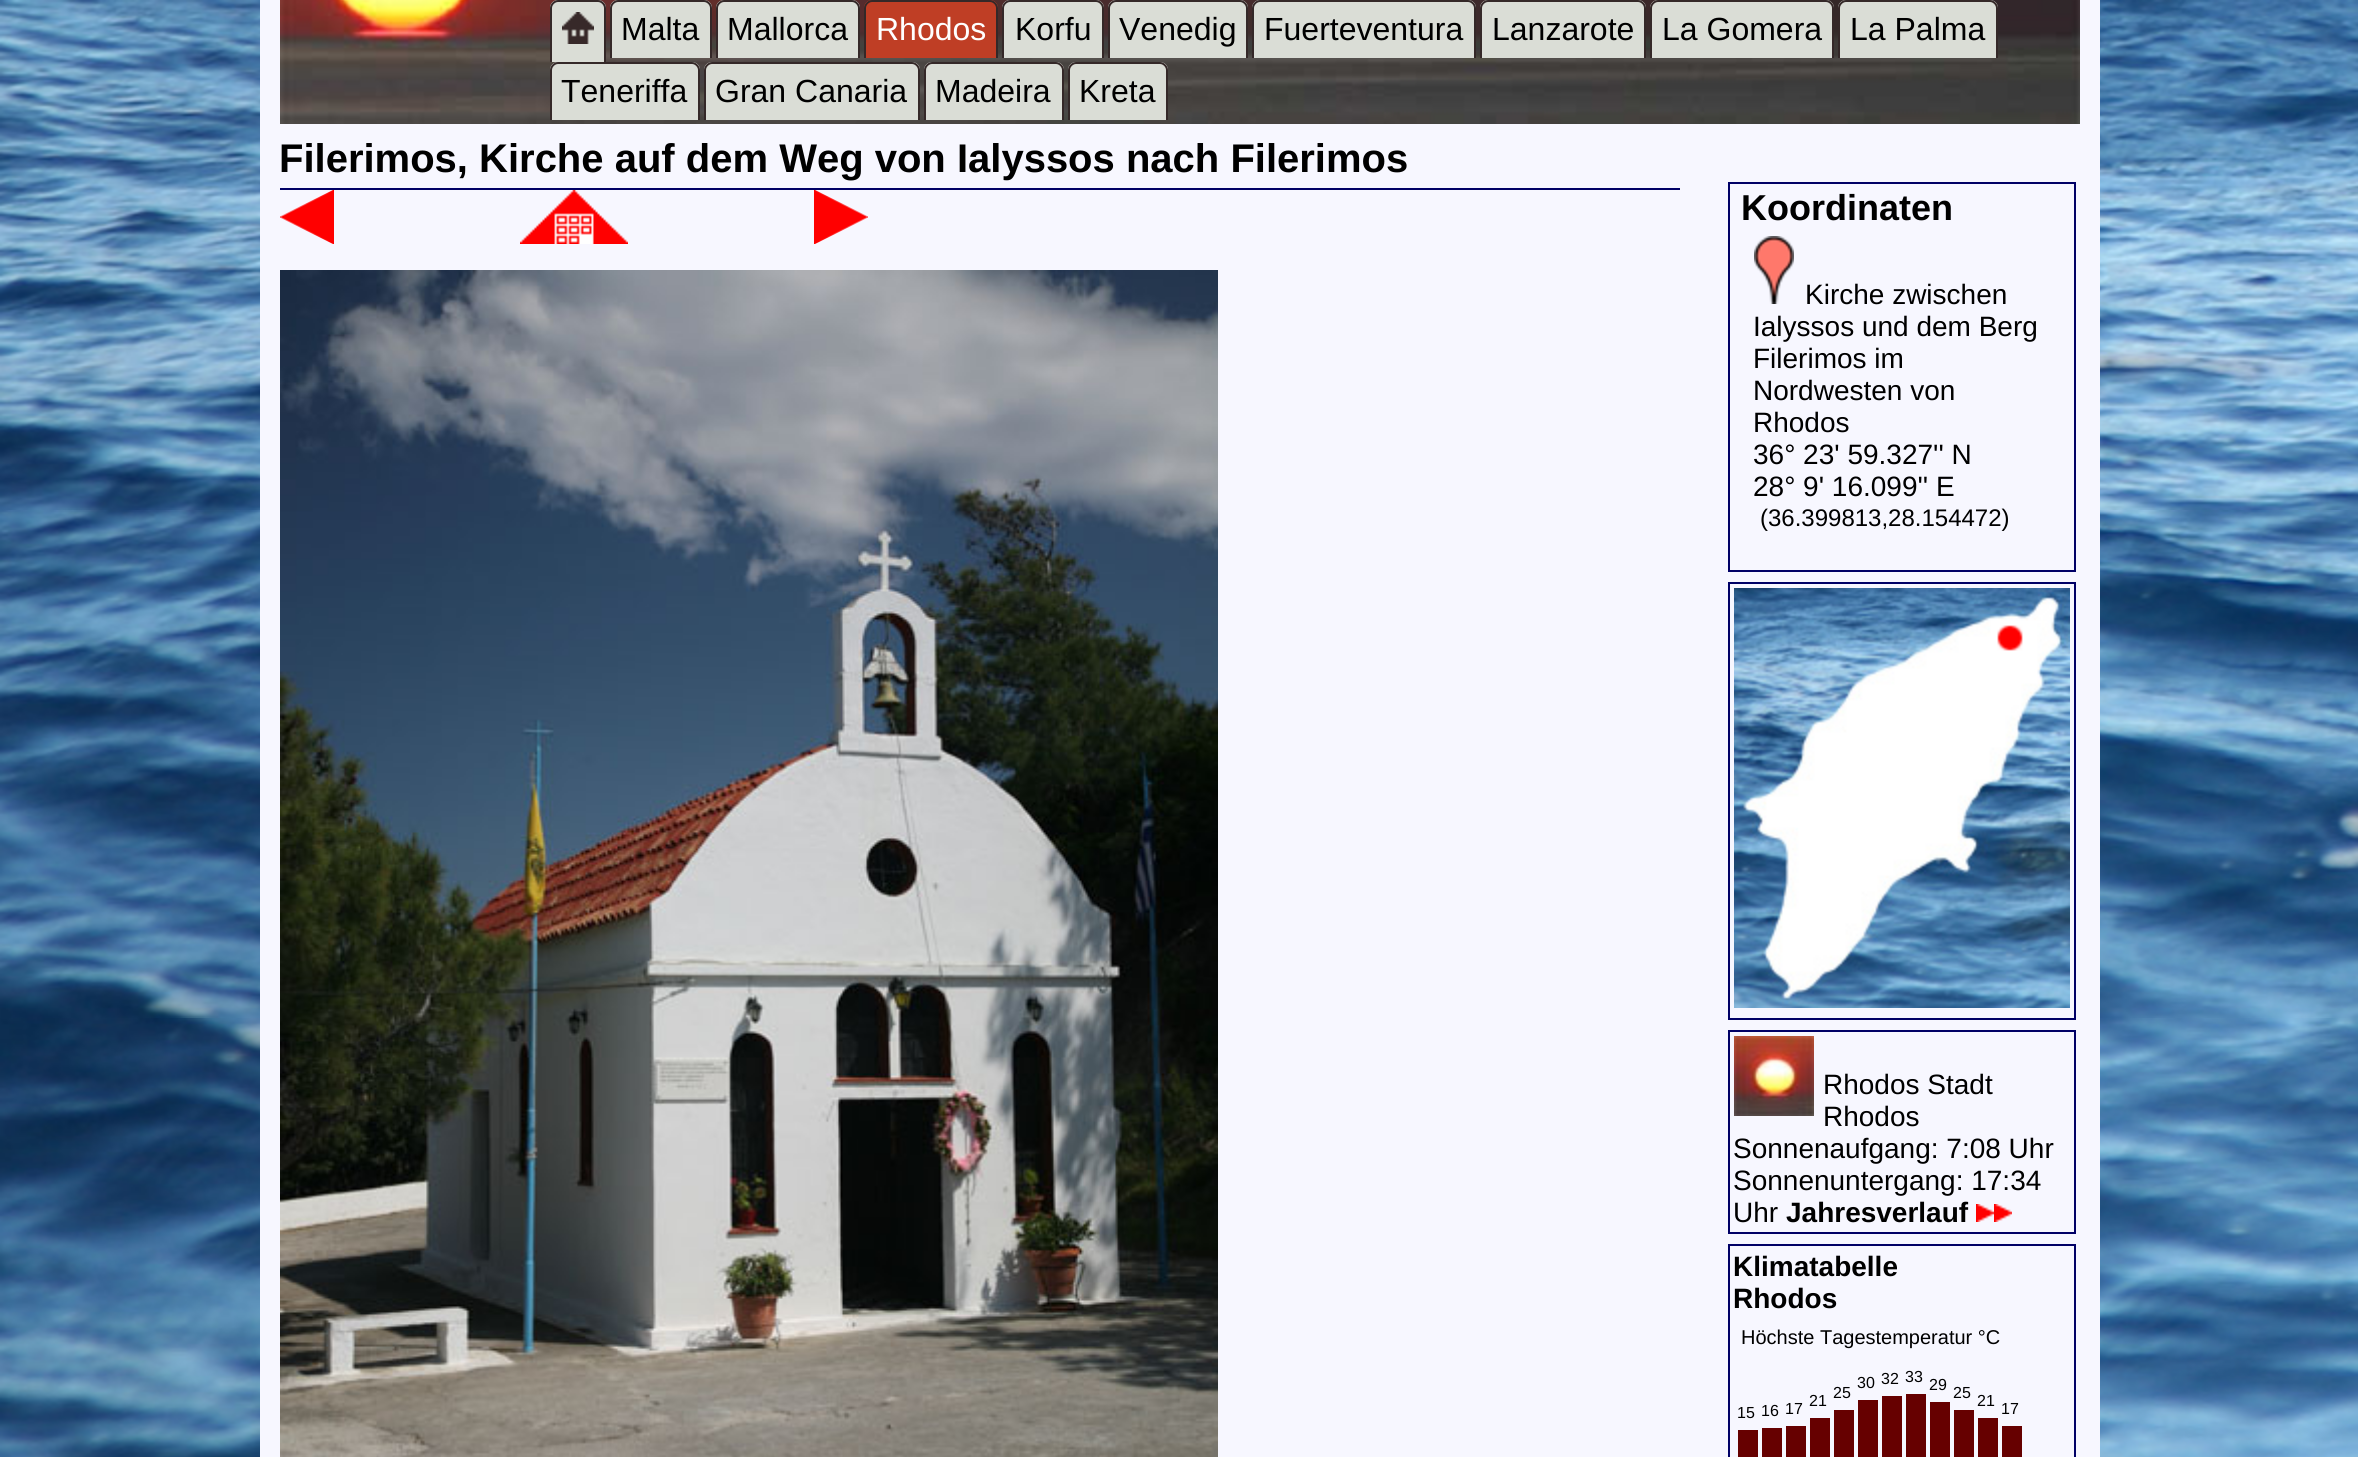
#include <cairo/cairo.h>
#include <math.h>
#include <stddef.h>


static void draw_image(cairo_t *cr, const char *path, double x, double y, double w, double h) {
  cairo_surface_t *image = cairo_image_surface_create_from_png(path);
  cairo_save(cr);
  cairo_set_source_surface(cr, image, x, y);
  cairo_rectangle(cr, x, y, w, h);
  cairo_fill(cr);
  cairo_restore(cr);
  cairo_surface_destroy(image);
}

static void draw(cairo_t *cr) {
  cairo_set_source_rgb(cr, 1, 1, 1);
  cairo_paint(cr);
  draw_image(cr, "images/1.png", 0, 0, 2358, 1457);
  cairo_set_source_rgb(cr, 247 / 255.0, 247 / 255.0, 1);
  cairo_rectangle(cr, 260, 0, 1840, 1457);
  cairo_fill(cr);
  draw_image(cr, "images/2.png", 280, 0, 1800, 124);
  cairo_set_source_rgb(cr, 218 / 255.0, 221 / 255.0, 214 / 255.0);
  cairo_new_path(cr);
  cairo_move_to(cr, 558, 0);
  cairo_line_to(cr, 598, 0);
  cairo_curve_to(cr, 602.5, 0, 606, 3.5, 606, 8);
  cairo_line_to(cr, 606, 62);
  cairo_line_to(cr, 550, 62);
  cairo_line_to(cr, 550, 8);
  cairo_curve_to(cr, 550, 3.5, 553.5, 0, 558, 0);
  cairo_close_path(cr);
  cairo_fill(cr);
  cairo_set_source_rgb(cr, 52 / 255.0, 40 / 255.0, 40 / 255.0);
  cairo_set_fill_rule(cr, CAIRO_FILL_RULE_EVEN_ODD);
  cairo_new_path(cr);
  cairo_move_to(cr, 558, 0);
  cairo_line_to(cr, 598, 0);
  cairo_curve_to(cr, 602, 0, 606, 4, 606, 8);
  cairo_line_to(cr, 606, 62);
  cairo_line_to(cr, 550, 62);
  cairo_line_to(cr, 550, 8);
  cairo_curve_to(cr, 550, 4, 554, 0, 558, 0);
  cairo_close_path(cr);
  cairo_move_to(cr, 558, 2);
  cairo_line_to(cr, 598, 2);
  cairo_curve_to(cr, 601, 2, 604, 5, 604, 8);
  cairo_line_to(cr, 604, 62);
  cairo_line_to(cr, 552, 62);
  cairo_line_to(cr, 552, 8);
  cairo_curve_to(cr, 552, 5, 555, 2, 558, 2);
  cairo_close_path(cr);
  cairo_fill(cr);
  draw_image(cr, "images/3.png", 562, 12, 32, 32);
  cairo_set_source_rgb(cr, 218 / 255.0, 221 / 255.0, 214 / 255.0);
  cairo_new_path(cr);
  cairo_move_to(cr, 618, 0);
  cairo_line_to(cr, 704, 0);
  cairo_curve_to(cr, 708.5, 0, 712, 3.5, 712, 8);
  cairo_line_to(cr, 712, 58);
  cairo_line_to(cr, 610, 58);
  cairo_line_to(cr, 610, 8);
  cairo_curve_to(cr, 610, 3.5, 613.5, 0, 618, 0);
  cairo_close_path(cr);
  cairo_fill(cr);
  cairo_set_source_rgb(cr, 52 / 255.0, 40 / 255.0, 40 / 255.0);
  cairo_new_path(cr);
  cairo_move_to(cr, 618, 0);
  cairo_line_to(cr, 704, 0);
  cairo_curve_to(cr, 708, 0, 712, 4, 712, 8);
  cairo_line_to(cr, 712, 58);
  cairo_line_to(cr, 610, 58);
  cairo_line_to(cr, 610, 8);
  cairo_curve_to(cr, 610, 4, 614, 0, 618, 0);
  cairo_close_path(cr);
  cairo_move_to(cr, 618, 2);
  cairo_line_to(cr, 704, 2);
  cairo_curve_to(cr, 707, 2, 710, 5, 710, 8);
  cairo_line_to(cr, 710, 58);
  cairo_line_to(cr, 612, 58);
  cairo_line_to(cr, 612, 8);
  cairo_curve_to(cr, 612, 5, 615, 2, 618, 2);
  cairo_close_path(cr);
  cairo_fill(cr);
  cairo_set_source_rgb(cr, 218 / 255.0, 221 / 255.0, 214 / 255.0);
  cairo_new_path(cr);
  cairo_move_to(cr, 724, 0);
  cairo_line_to(cr, 852, 0);
  cairo_curve_to(cr, 856.5, 0, 860, 3.5, 860, 8);
  cairo_line_to(cr, 860, 58);
  cairo_line_to(cr, 716, 58);
  cairo_line_to(cr, 716, 8);
  cairo_curve_to(cr, 716, 3.5, 719.5, 0, 724, 0);
  cairo_close_path(cr);
  cairo_fill(cr);
  cairo_set_source_rgb(cr, 52 / 255.0, 40 / 255.0, 40 / 255.0);
  cairo_new_path(cr);
  cairo_move_to(cr, 724, 0);
  cairo_line_to(cr, 852, 0);
  cairo_curve_to(cr, 856, 0, 860, 4, 860, 8);
  cairo_line_to(cr, 860, 58);
  cairo_line_to(cr, 716, 58);
  cairo_line_to(cr, 716, 8);
  cairo_curve_to(cr, 716, 4, 720, 0, 724, 0);
  cairo_close_path(cr);
  cairo_move_to(cr, 724, 2);
  cairo_line_to(cr, 852, 2);
  cairo_curve_to(cr, 855, 2, 858, 5, 858, 8);
  cairo_line_to(cr, 858, 58);
  cairo_line_to(cr, 718, 58);
  cairo_line_to(cr, 718, 8);
  cairo_curve_to(cr, 718, 5, 721, 2, 724, 2);
  cairo_close_path(cr);
  cairo_fill(cr);
  cairo_set_source_rgb(cr, 191 / 255.0, 62 / 255.0, 37 / 255.0);
  cairo_new_path(cr);
  cairo_move_to(cr, 872, 0);
  cairo_line_to(cr, 990, 0);
  cairo_curve_to(cr, 994.5, 0, 998, 3.5, 998, 8);
  cairo_line_to(cr, 998, 58);
  cairo_line_to(cr, 864, 58);
  cairo_line_to(cr, 864, 8);
  cairo_curve_to(cr, 864, 3.5, 867.5, 0, 872, 0);
  cairo_close_path(cr);
  cairo_fill(cr);
  cairo_set_source_rgb(cr, 52 / 255.0, 40 / 255.0, 40 / 255.0);
  cairo_new_path(cr);
  cairo_move_to(cr, 872, 0);
  cairo_line_to(cr, 990, 0);
  cairo_curve_to(cr, 994, 0, 998, 4, 998, 8);
  cairo_line_to(cr, 998, 58);
  cairo_line_to(cr, 864, 58);
  cairo_line_to(cr, 864, 8);
  cairo_curve_to(cr, 864, 4, 868, 0, 872, 0);
  cairo_close_path(cr);
  cairo_move_to(cr, 872, 2);
  cairo_line_to(cr, 990, 2);
  cairo_curve_to(cr, 993, 2, 996, 5, 996, 8);
  cairo_line_to(cr, 996, 58);
  cairo_line_to(cr, 866, 58);
  cairo_line_to(cr, 866, 8);
  cairo_curve_to(cr, 866, 5, 869, 2, 872, 2);
  cairo_close_path(cr);
  cairo_fill(cr);
  cairo_set_source_rgb(cr, 218 / 255.0, 221 / 255.0, 214 / 255.0);
  cairo_new_path(cr);
  cairo_move_to(cr, 1010, 0);
  cairo_line_to(cr, 1096, 0);
  cairo_curve_to(cr, 1100.5, 0, 1104, 3.5, 1104, 8);
  cairo_line_to(cr, 1104, 58);
  cairo_line_to(cr, 1002, 58);
  cairo_line_to(cr, 1002, 8);
  cairo_curve_to(cr, 1002, 3.5, 1005.5, 0, 1010, 0);
  cairo_close_path(cr);
  cairo_fill(cr);
  cairo_set_source_rgb(cr, 52 / 255.0, 40 / 255.0, 40 / 255.0);
  cairo_new_path(cr);
  cairo_move_to(cr, 1010, 0);
  cairo_line_to(cr, 1096, 0);
  cairo_curve_to(cr, 1100, 0, 1104, 4, 1104, 8);
  cairo_line_to(cr, 1104, 58);
  cairo_line_to(cr, 1002, 58);
  cairo_line_to(cr, 1002, 8);
  cairo_curve_to(cr, 1002, 4, 1006, 0, 1010, 0);
  cairo_close_path(cr);
  cairo_move_to(cr, 1010, 2);
  cairo_line_to(cr, 1096, 2);
  cairo_curve_to(cr, 1099, 2, 1102, 5, 1102, 8);
  cairo_line_to(cr, 1102, 58);
  cairo_line_to(cr, 1004, 58);
  cairo_line_to(cr, 1004, 8);
  cairo_curve_to(cr, 1004, 5, 1007, 2, 1010, 2);
  cairo_close_path(cr);
  cairo_fill(cr);
  cairo_set_source_rgb(cr, 218 / 255.0, 221 / 255.0, 214 / 255.0);
  cairo_new_path(cr);
  cairo_move_to(cr, 1116, 0);
  cairo_line_to(cr, 1240, 0);
  cairo_curve_to(cr, 1244.5, 0, 1248, 3.5, 1248, 8);
  cairo_line_to(cr, 1248, 58);
  cairo_line_to(cr, 1108, 58);
  cairo_line_to(cr, 1108, 8);
  cairo_curve_to(cr, 1108, 3.5, 1111.5, 0, 1116, 0);
  cairo_close_path(cr);
  cairo_fill(cr);
  cairo_set_source_rgb(cr, 52 / 255.0, 40 / 255.0, 40 / 255.0);
  cairo_new_path(cr);
  cairo_move_to(cr, 1116, 0);
  cairo_line_to(cr, 1240, 0);
  cairo_curve_to(cr, 1244, 0, 1248, 4, 1248, 8);
  cairo_line_to(cr, 1248, 58);
  cairo_line_to(cr, 1108, 58);
  cairo_line_to(cr, 1108, 8);
  cairo_curve_to(cr, 1108, 4, 1112, 0, 1116, 0);
  cairo_close_path(cr);
  cairo_move_to(cr, 1116, 2);
  cairo_line_to(cr, 1240, 2);
  cairo_curve_to(cr, 1243, 2, 1246, 5, 1246, 8);
  cairo_line_to(cr, 1246, 58);
  cairo_line_to(cr, 1110, 58);
  cairo_line_to(cr, 1110, 8);
  cairo_curve_to(cr, 1110, 5, 1113, 2, 1116, 2);
  cairo_close_path(cr);
  cairo_fill(cr);
  cairo_set_source_rgb(cr, 218 / 255.0, 221 / 255.0, 214 / 255.0);
  cairo_new_path(cr);
  cairo_move_to(cr, 1260, 0);
  cairo_line_to(cr, 1468, 0);
  cairo_curve_to(cr, 1472.5, 0, 1476, 3.5, 1476, 8);
  cairo_line_to(cr, 1476, 58);
  cairo_line_to(cr, 1252, 58);
  cairo_line_to(cr, 1252, 8);
  cairo_curve_to(cr, 1252, 3.5, 1255.5, 0, 1260, 0);
  cairo_close_path(cr);
  cairo_fill(cr);
  cairo_set_source_rgb(cr, 52 / 255.0, 40 / 255.0, 40 / 255.0);
  cairo_new_path(cr);
  cairo_move_to(cr, 1260, 0);
  cairo_line_to(cr, 1468, 0);
  cairo_curve_to(cr, 1472, 0, 1476, 4, 1476, 8);
  cairo_line_to(cr, 1476, 58);
  cairo_line_to(cr, 1252, 58);
  cairo_line_to(cr, 1252, 8);
  cairo_curve_to(cr, 1252, 4, 1256, 0, 1260, 0);
  cairo_close_path(cr);
  cairo_move_to(cr, 1260, 2);
  cairo_line_to(cr, 1468, 2);
  cairo_curve_to(cr, 1471, 2, 1474, 5, 1474, 8);
  cairo_line_to(cr, 1474, 58);
  cairo_line_to(cr, 1254, 58);
  cairo_line_to(cr, 1254, 8);
  cairo_curve_to(cr, 1254, 5, 1257, 2, 1260, 2);
  cairo_close_path(cr);
  cairo_fill(cr);
  cairo_set_source_rgb(cr, 218 / 255.0, 221 / 255.0, 214 / 255.0);
  cairo_new_path(cr);
  cairo_move_to(cr, 1488, 0);
  cairo_line_to(cr, 1638, 0);
  cairo_curve_to(cr, 1642.5, 0, 1646, 3.5, 1646, 8);
  cairo_line_to(cr, 1646, 58);
  cairo_line_to(cr, 1480, 58);
  cairo_line_to(cr, 1480, 8);
  cairo_curve_to(cr, 1480, 3.5, 1483.5, 0, 1488, 0);
  cairo_close_path(cr);
  cairo_fill(cr);
  cairo_set_source_rgb(cr, 52 / 255.0, 40 / 255.0, 40 / 255.0);
  cairo_new_path(cr);
  cairo_move_to(cr, 1488, 0);
  cairo_line_to(cr, 1638, 0);
  cairo_curve_to(cr, 1642, 0, 1646, 4, 1646, 8);
  cairo_line_to(cr, 1646, 58);
  cairo_line_to(cr, 1480, 58);
  cairo_line_to(cr, 1480, 8);
  cairo_curve_to(cr, 1480, 4, 1484, 0, 1488, 0);
  cairo_close_path(cr);
  cairo_move_to(cr, 1488, 2);
  cairo_line_to(cr, 1638, 2);
  cairo_curve_to(cr, 1641, 2, 1644, 5, 1644, 8);
  cairo_line_to(cr, 1644, 58);
  cairo_line_to(cr, 1482, 58);
  cairo_line_to(cr, 1482, 8);
  cairo_curve_to(cr, 1482, 5, 1485, 2, 1488, 2);
  cairo_close_path(cr);
  cairo_fill(cr);
  cairo_set_source_rgb(cr, 218 / 255.0, 221 / 255.0, 214 / 255.0);
  cairo_new_path(cr);
  cairo_move_to(cr, 1658, 0);
  cairo_line_to(cr, 1826, 0);
  cairo_curve_to(cr, 1830.5, 0, 1834, 3.5, 1834, 8);
  cairo_line_to(cr, 1834, 58);
  cairo_line_to(cr, 1650, 58);
  cairo_line_to(cr, 1650, 8);
  cairo_curve_to(cr, 1650, 3.5, 1653.5, 0, 1658, 0);
  cairo_close_path(cr);
  cairo_fill(cr);
  cairo_set_source_rgb(cr, 52 / 255.0, 40 / 255.0, 40 / 255.0);
  cairo_new_path(cr);
  cairo_move_to(cr, 1658, 0);
  cairo_line_to(cr, 1826, 0);
  cairo_curve_to(cr, 1830, 0, 1834, 4, 1834, 8);
  cairo_line_to(cr, 1834, 58);
  cairo_line_to(cr, 1650, 58);
  cairo_line_to(cr, 1650, 8);
  cairo_curve_to(cr, 1650, 4, 1654, 0, 1658, 0);
  cairo_close_path(cr);
  cairo_move_to(cr, 1658, 2);
  cairo_line_to(cr, 1826, 2);
  cairo_curve_to(cr, 1829, 2, 1832, 5, 1832, 8);
  cairo_line_to(cr, 1832, 58);
  cairo_line_to(cr, 1652, 58);
  cairo_line_to(cr, 1652, 8);
  cairo_curve_to(cr, 1652, 5, 1655, 2, 1658, 2);
  cairo_close_path(cr);
  cairo_fill(cr);
  cairo_set_source_rgb(cr, 218 / 255.0, 221 / 255.0, 214 / 255.0);
  cairo_new_path(cr);
  cairo_move_to(cr, 1846, 0);
  cairo_line_to(cr, 1990, 0);
  cairo_curve_to(cr, 1994.5, 0, 1998, 3.5, 1998, 8);
  cairo_line_to(cr, 1998, 58);
  cairo_line_to(cr, 1838, 58);
  cairo_line_to(cr, 1838, 8);
  cairo_curve_to(cr, 1838, 3.5, 1841.5, 0, 1846, 0);
  cairo_close_path(cr);
  cairo_fill(cr);
  cairo_set_source_rgb(cr, 52 / 255.0, 40 / 255.0, 40 / 255.0);
  cairo_new_path(cr);
  cairo_move_to(cr, 1846, 0);
  cairo_line_to(cr, 1990, 0);
  cairo_curve_to(cr, 1994, 0, 1998, 4, 1998, 8);
  cairo_line_to(cr, 1998, 58);
  cairo_line_to(cr, 1838, 58);
  cairo_line_to(cr, 1838, 8);
  cairo_curve_to(cr, 1838, 4, 1842, 0, 1846, 0);
  cairo_close_path(cr);
  cairo_move_to(cr, 1846, 2);
  cairo_line_to(cr, 1990, 2);
  cairo_curve_to(cr, 1993, 2, 1996, 5, 1996, 8);
  cairo_line_to(cr, 1996, 58);
  cairo_line_to(cr, 1840, 58);
  cairo_line_to(cr, 1840, 8);
  cairo_curve_to(cr, 1840, 5, 1843, 2, 1846, 2);
  cairo_close_path(cr);
  cairo_fill(cr);
  cairo_set_source_rgb(cr, 218 / 255.0, 221 / 255.0, 214 / 255.0);
  cairo_new_path(cr);
  cairo_move_to(cr, 558, 62);
  cairo_line_to(cr, 692, 62);
  cairo_curve_to(cr, 696.5, 62, 700, 65.5, 700, 70);
  cairo_line_to(cr, 700, 120);
  cairo_line_to(cr, 550, 120);
  cairo_line_to(cr, 550, 70);
  cairo_curve_to(cr, 550, 65.5, 553.5, 62, 558, 62);
  cairo_close_path(cr);
  cairo_fill(cr);
  cairo_set_source_rgb(cr, 52 / 255.0, 40 / 255.0, 40 / 255.0);
  cairo_new_path(cr);
  cairo_move_to(cr, 558, 62);
  cairo_line_to(cr, 692, 62);
  cairo_curve_to(cr, 696, 62, 700, 66, 700, 70);
  cairo_line_to(cr, 700, 120);
  cairo_line_to(cr, 550, 120);
  cairo_line_to(cr, 550, 70);
  cairo_curve_to(cr, 550, 66, 554, 62, 558, 62);
  cairo_close_path(cr);
  cairo_move_to(cr, 558, 64);
  cairo_line_to(cr, 692, 64);
  cairo_curve_to(cr, 695, 64, 698, 67, 698, 70);
  cairo_line_to(cr, 698, 120);
  cairo_line_to(cr, 552, 120);
  cairo_line_to(cr, 552, 70);
  cairo_curve_to(cr, 552, 67, 555, 64, 558, 64);
  cairo_close_path(cr);
  cairo_fill(cr);
  cairo_set_source_rgb(cr, 218 / 255.0, 221 / 255.0, 214 / 255.0);
  cairo_new_path(cr);
  cairo_move_to(cr, 712, 62);
  cairo_line_to(cr, 912, 62);
  cairo_curve_to(cr, 916.5, 62, 920, 65.5, 920, 70);
  cairo_line_to(cr, 920, 120);
  cairo_line_to(cr, 704, 120);
  cairo_line_to(cr, 704, 70);
  cairo_curve_to(cr, 704, 65.5, 707.5, 62, 712, 62);
  cairo_close_path(cr);
  cairo_fill(cr);
  cairo_set_source_rgb(cr, 52 / 255.0, 40 / 255.0, 40 / 255.0);
  cairo_new_path(cr);
  cairo_move_to(cr, 712, 62);
  cairo_line_to(cr, 912, 62);
  cairo_curve_to(cr, 916, 62, 920, 66, 920, 70);
  cairo_line_to(cr, 920, 120);
  cairo_line_to(cr, 704, 120);
  cairo_line_to(cr, 704, 70);
  cairo_curve_to(cr, 704, 66, 708, 62, 712, 62);
  cairo_close_path(cr);
  cairo_move_to(cr, 712, 64);
  cairo_line_to(cr, 912, 64);
  cairo_curve_to(cr, 915, 64, 918, 67, 918, 70);
  cairo_line_to(cr, 918, 120);
  cairo_line_to(cr, 706, 120);
  cairo_line_to(cr, 706, 70);
  cairo_curve_to(cr, 706, 67, 709, 64, 712, 64);
  cairo_close_path(cr);
  cairo_fill(cr);
  cairo_set_source_rgb(cr, 218 / 255.0, 221 / 255.0, 214 / 255.0);
  cairo_new_path(cr);
  cairo_move_to(cr, 932, 62);
  cairo_line_to(cr, 1056, 62);
  cairo_curve_to(cr, 1060.5, 62, 1064, 65.5, 1064, 70);
  cairo_line_to(cr, 1064, 120);
  cairo_line_to(cr, 924, 120);
  cairo_line_to(cr, 924, 70);
  cairo_curve_to(cr, 924, 65.5, 927.5, 62, 932, 62);
  cairo_close_path(cr);
  cairo_fill(cr);
  cairo_set_source_rgb(cr, 52 / 255.0, 40 / 255.0, 40 / 255.0);
  cairo_new_path(cr);
  cairo_move_to(cr, 932, 62);
  cairo_line_to(cr, 1056, 62);
  cairo_curve_to(cr, 1060, 62, 1064, 66, 1064, 70);
  cairo_line_to(cr, 1064, 120);
  cairo_line_to(cr, 924, 120);
  cairo_line_to(cr, 924, 70);
  cairo_curve_to(cr, 924, 66, 928, 62, 932, 62);
  cairo_close_path(cr);
  cairo_move_to(cr, 932, 64);
  cairo_line_to(cr, 1056, 64);
  cairo_curve_to(cr, 1059, 64, 1062, 67, 1062, 70);
  cairo_line_to(cr, 1062, 120);
  cairo_line_to(cr, 926, 120);
  cairo_line_to(cr, 926, 70);
  cairo_curve_to(cr, 926, 67, 929, 64, 932, 64);
  cairo_close_path(cr);
  cairo_fill(cr);
  cairo_set_source_rgb(cr, 218 / 255.0, 221 / 255.0, 214 / 255.0);
  cairo_new_path(cr);
  cairo_move_to(cr, 1076, 62);
  cairo_line_to(cr, 1160, 62);
  cairo_curve_to(cr, 1164.5, 62, 1168, 65.5, 1168, 70);
  cairo_line_to(cr, 1168, 120);
  cairo_line_to(cr, 1068, 120);
  cairo_line_to(cr, 1068, 70);
  cairo_curve_to(cr, 1068, 65.5, 1071.5, 62, 1076, 62);
  cairo_close_path(cr);
  cairo_fill(cr);
  cairo_set_source_rgb(cr, 52 / 255.0, 40 / 255.0, 40 / 255.0);
  cairo_new_path(cr);
  cairo_move_to(cr, 1076, 62);
  cairo_line_to(cr, 1160, 62);
  cairo_curve_to(cr, 1164, 62, 1168, 66, 1168, 70);
  cairo_line_to(cr, 1168, 120);
  cairo_line_to(cr, 1068, 120);
  cairo_line_to(cr, 1068, 70);
  cairo_curve_to(cr, 1068, 66, 1072, 62, 1076, 62);
  cairo_close_path(cr);
  cairo_move_to(cr, 1076, 64);
  cairo_line_to(cr, 1160, 64);
  cairo_curve_to(cr, 1163, 64, 1166, 67, 1166, 70);
  cairo_line_to(cr, 1166, 120);
  cairo_line_to(cr, 1070, 120);
  cairo_line_to(cr, 1070, 70);
  cairo_curve_to(cr, 1070, 67, 1073, 64, 1076, 64);
  cairo_close_path(cr);
  cairo_fill(cr);
  cairo_set_source_rgb(cr, 0, 0, 102 / 255.0);
  cairo_rectangle(cr, 280, 188, 1400, 2);
  cairo_fill(cr);
  draw_image(cr, "images/4.png", 280, 190, 54, 54);
  draw_image(cr, "images/5.png", 520, 190, 108, 54);
  draw_image(cr, "images/6.png", 814, 190, 54, 54);
  draw_image(cr, "images/7.png", 280, 270, 938, 1187);
  cairo_rectangle(cr, 1729, 183, 346, 388);
  cairo_stroke(cr);
  draw_image(cr, "images/8.png", 1754, 236, 40, 68);
  cairo_rectangle(cr, 1729, 583, 346, 436);
  cairo_stroke(cr);
  draw_image(cr, "images/9.png", 1734, 588, 336, 420);
  cairo_rectangle(cr, 1729, 1031, 346, 202);
  cairo_stroke(cr);
  draw_image(cr, "images/10.png", 1734, 1036, 80, 80);
  draw_image(cr, "images/11.png", 1976, 1204, 18, 18);
  draw_image(cr, "images/11.png", 1994, 1204, 18, 18);
  cairo_rectangle(cr, 1729, 1245, 346, 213);
  cairo_stroke(cr);
  cairo_set_source_rgb(cr, 102 / 255.0, 0, 0);
  cairo_rectangle(cr, 1858, 1400, 20, 57);
  cairo_fill(cr);
  cairo_rectangle(cr, 1882, 1396, 20, 61);
  cairo_fill(cr);
  cairo_rectangle(cr, 1906, 1394, 20, 63);
  cairo_fill(cr);
  cairo_rectangle(cr, 1930, 1402, 20, 55);
  cairo_fill(cr);
  cairo_rectangle(cr, 1810, 1418, 20, 39);
  cairo_fill(cr);
  cairo_rectangle(cr, 1834, 1410, 20, 47);
  cairo_fill(cr);
  cairo_rectangle(cr, 1954, 1410, 20, 47);
  cairo_fill(cr);
  cairo_rectangle(cr, 1978, 1418, 20, 39);
  cairo_fill(cr);
  cairo_rectangle(cr, 1738, 1430, 20, 27);
  cairo_fill(cr);
  cairo_rectangle(cr, 1762, 1428, 20, 29);
  cairo_fill(cr);
  cairo_rectangle(cr, 1786, 1426, 20, 31);
  cairo_fill(cr);
  cairo_rectangle(cr, 2002, 1426, 20, 31);
  cairo_fill(cr);
  cairo_select_font_face(cr, "Liberation Sans", CAIRO_FONT_SLANT_NORMAL, CAIRO_FONT_WEIGHT_NORMAL);
  cairo_set_font_size(cr, 32);
  cairo_set_source_rgb(cr, 0, 0, 0);
  cairo_move_to(cr, 621, 40);
  cairo_show_text(cr, "Malta");
  cairo_move_to(cr, 727, 40);
  cairo_show_text(cr, "Mallorca");
  cairo_set_source_rgb(cr, 1, 1, 1);
  cairo_move_to(cr, 876, 40);
  cairo_show_text(cr, "Rhodos");
  cairo_set_source_rgb(cr, 0, 0, 0);
  cairo_move_to(cr, 1015, 40);
  cairo_show_text(cr, "Korfu");
  cairo_move_to(cr, 1119, 40);
  cairo_show_text(cr, "Venedig");
  cairo_move_to(cr, 1264, 40);
  cairo_show_text(cr, "Fuerteventura");
  cairo_move_to(cr, 1492, 40);
  cairo_show_text(cr, "Lanzarote");
  cairo_move_to(cr, 1662, 40);
  cairo_show_text(cr, "La Gomera");
  cairo_move_to(cr, 1850, 40);
  cairo_show_text(cr, "La Palma");
  cairo_move_to(cr, 561, 102);
  cairo_show_text(cr, "Teneriffa");
  cairo_move_to(cr, 715, 102);
  cairo_show_text(cr, "Gran Canaria");
  cairo_move_to(cr, 935, 102);
  cairo_show_text(cr, "Madeira");
  cairo_move_to(cr, 1079, 102);
  cairo_show_text(cr, "Kreta");
  cairo_select_font_face(cr, "Liberation Sans", CAIRO_FONT_SLANT_NORMAL, CAIRO_FONT_WEIGHT_BOLD);
  cairo_set_font_size(cr, 40);
  cairo_move_to(cr, 279, 172);
  cairo_show_text(cr, "Filerimos, Kirche auf dem Weg von Ialyssos nach Filerimos");
  cairo_set_font_size(cr, 36);
  cairo_move_to(cr, 1741, 220);
  cairo_show_text(cr, "Koordinaten");
  cairo_select_font_face(cr, "Liberation Sans", CAIRO_FONT_SLANT_NORMAL, CAIRO_FONT_WEIGHT_NORMAL);
  cairo_set_font_size(cr, 28);
  cairo_move_to(cr, 1805, 304);
  cairo_show_text(cr, "Kirche zwischen");
  cairo_move_to(cr, 1753, 336);
  cairo_show_text(cr, "Ialyssos und dem Berg");
  cairo_move_to(cr, 1753, 368);
  cairo_show_text(cr, "Filerimos im");
  cairo_move_to(cr, 1753, 400);
  cairo_show_text(cr, "Nordwesten von");
  cairo_move_to(cr, 1753, 432);
  cairo_show_text(cr, "Rhodos");
  cairo_move_to(cr, 1753, 464);
  cairo_show_text(cr, "36° 23' 59.327'' N");
  cairo_move_to(cr, 1753, 496);
  cairo_show_text(cr, "28° 9' 16.099'' E");
  cairo_set_font_size(cr, 24);
  cairo_move_to(cr, 1760, 526);
  cairo_show_text(cr, "(36.399813,28.154472)");
  cairo_set_font_size(cr, 28);
  cairo_move_to(cr, 1823, 1094);
  cairo_show_text(cr, "Rhodos Stadt");
  cairo_move_to(cr, 1823, 1126);
  cairo_show_text(cr, "Rhodos");
  cairo_move_to(cr, 1733, 1158);
  cairo_show_text(cr, "Sonnenaufgang: 7:08 Uhr");
  cairo_move_to(cr, 1733, 1190);
  cairo_show_text(cr, "Sonnenuntergang: 17:34");
  cairo_move_to(cr, 1733, 1222);
  cairo_show_text(cr, "Uhr");
  cairo_select_font_face(cr, "Liberation Sans", CAIRO_FONT_SLANT_NORMAL, CAIRO_FONT_WEIGHT_BOLD);
  cairo_move_to(cr, 1786, 1222);
  cairo_show_text(cr, "Jahresverlauf");
  cairo_move_to(cr, 1733, 1276);
  cairo_show_text(cr, "Klimatabelle");
  cairo_move_to(cr, 1733, 1308);
  cairo_show_text(cr, "Rhodos");
  cairo_select_font_face(cr, "Liberation Sans", CAIRO_FONT_SLANT_NORMAL, CAIRO_FONT_WEIGHT_NORMAL);
  cairo_set_font_size(cr, 20);
  cairo_move_to(cr, 1741, 1344);
  cairo_show_text(cr, "Höchste Tagestemperatur °C");
  cairo_set_font_size(cr, 16);
  cairo_move_to(cr, 1857, 1388);
  cairo_show_text(cr, "30");
  cairo_move_to(cr, 1881, 1384);
  cairo_show_text(cr, "32");
  cairo_move_to(cr, 1905, 1382);
  cairo_show_text(cr, "33");
  cairo_move_to(cr, 1929, 1390);
  cairo_show_text(cr, "29");
  cairo_move_to(cr, 1809, 1406);
  cairo_show_text(cr, "21");
  cairo_move_to(cr, 1833, 1398);
  cairo_show_text(cr, "25");
  cairo_move_to(cr, 1953, 1398);
  cairo_show_text(cr, "25");
  cairo_move_to(cr, 1977, 1406);
  cairo_show_text(cr, "21");
  cairo_move_to(cr, 1737, 1418);
  cairo_show_text(cr, "15");
  cairo_move_to(cr, 1761, 1416);
  cairo_show_text(cr, "16");
  cairo_move_to(cr, 1785, 1414);
  cairo_show_text(cr, "17");
  cairo_move_to(cr, 2001, 1414);
  cairo_show_text(cr, "17");
}

int main(void) {
  cairo_surface_t *surface = cairo_image_surface_create(CAIRO_FORMAT_RGB24, 2358, 1457);
  cairo_t *cr = cairo_create(surface);
  cairo_font_options_t *options = cairo_font_options_create();
  cairo_font_options_set_hint_metrics(options, CAIRO_HINT_METRICS_OFF);
  cairo_font_options_set_hint_style(options, CAIRO_HINT_STYLE_NONE);
  cairo_set_font_options(cr, options);
  cairo_set_miter_limit(cr, 4);
  draw(cr);
  cairo_surface_write_to_png(surface, "out.png");
  cairo_font_options_destroy(options);
  cairo_destroy(cr);
  cairo_surface_destroy(surface);
  return 0;
}
